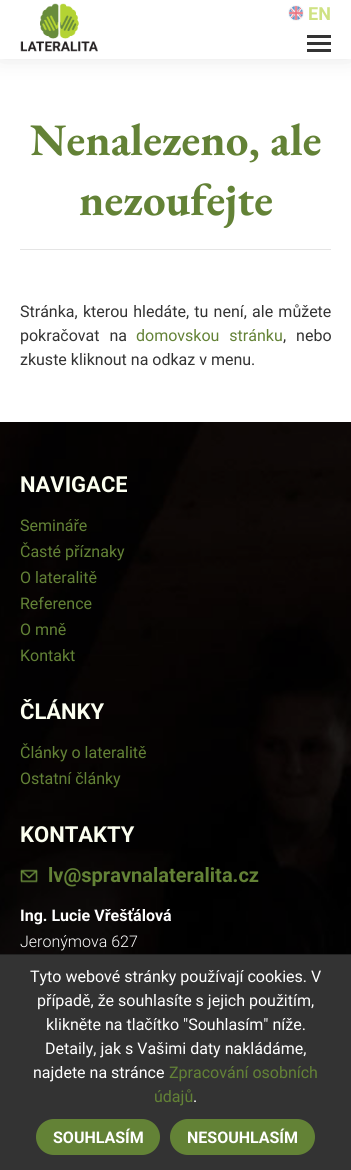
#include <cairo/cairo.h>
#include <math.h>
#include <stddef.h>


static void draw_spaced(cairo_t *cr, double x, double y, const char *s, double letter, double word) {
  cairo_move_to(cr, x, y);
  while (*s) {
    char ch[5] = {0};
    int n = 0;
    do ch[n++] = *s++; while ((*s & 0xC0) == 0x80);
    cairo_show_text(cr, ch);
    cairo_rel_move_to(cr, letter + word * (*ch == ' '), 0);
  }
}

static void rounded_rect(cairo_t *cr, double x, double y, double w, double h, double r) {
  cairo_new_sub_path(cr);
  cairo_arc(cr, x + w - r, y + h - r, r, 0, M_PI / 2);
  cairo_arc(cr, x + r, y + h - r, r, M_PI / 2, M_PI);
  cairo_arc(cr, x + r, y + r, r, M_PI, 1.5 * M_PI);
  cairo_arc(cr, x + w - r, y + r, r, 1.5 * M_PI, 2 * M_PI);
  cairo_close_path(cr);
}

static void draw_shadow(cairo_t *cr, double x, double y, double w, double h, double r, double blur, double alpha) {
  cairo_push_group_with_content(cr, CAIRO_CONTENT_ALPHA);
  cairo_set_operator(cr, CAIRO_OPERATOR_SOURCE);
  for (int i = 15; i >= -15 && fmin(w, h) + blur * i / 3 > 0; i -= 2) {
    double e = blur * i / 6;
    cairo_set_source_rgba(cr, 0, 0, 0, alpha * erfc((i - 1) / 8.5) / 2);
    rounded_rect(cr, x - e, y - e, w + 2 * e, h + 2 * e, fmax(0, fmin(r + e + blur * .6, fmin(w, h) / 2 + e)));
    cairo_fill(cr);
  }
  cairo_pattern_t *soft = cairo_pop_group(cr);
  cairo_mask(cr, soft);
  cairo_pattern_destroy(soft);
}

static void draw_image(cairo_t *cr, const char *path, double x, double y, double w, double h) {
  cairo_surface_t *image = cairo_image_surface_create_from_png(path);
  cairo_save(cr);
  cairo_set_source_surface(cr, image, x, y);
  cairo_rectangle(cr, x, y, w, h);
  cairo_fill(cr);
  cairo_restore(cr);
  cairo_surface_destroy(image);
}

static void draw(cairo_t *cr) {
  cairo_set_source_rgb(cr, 1, 1, 1);
  cairo_paint(cr);
  cairo_save(cr);
  cairo_rectangle(cr, 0, 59, 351, 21);
  cairo_clip(cr);
  cairo_set_source_rgb(cr, 221 / 255.0, 221 / 255.0, 221 / 255.0);
  draw_shadow(cr, 0, -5, 351, 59, 0, 12.5, 1);
  cairo_restore(cr);
  draw_image(cr, "images/1.png", 20, 3, 78, 49);
  cairo_arc(cr, 296, 13, 7.5, 0, 2 * M_PI);
  cairo_set_source_rgb(cr, 245 / 255.0, 245 / 255.0, 245 / 255.0);
  cairo_set_line_width(cr, 1);
  cairo_stroke(cr);
  draw_image(cr, "images/2.png", 289, 6, 14, 14);
  cairo_set_source_rgb(cr, 51 / 255.0, 51 / 255.0, 51 / 255.0);
  cairo_rectangle(cr, 307, 35, 24, 3);
  cairo_fill(cr);
  cairo_rectangle(cr, 307, 42, 24, 3);
  cairo_fill(cr);
  cairo_rectangle(cr, 307, 49, 24, 3);
  cairo_fill(cr);
  cairo_set_source_rgb(cr, 229 / 255.0, 229 / 255.0, 229 / 255.0);
  cairo_rectangle(cr, 20, 249, 311, 1);
  cairo_fill(cr);
  draw_image(cr, "images/3.png", 0, 422, 351, 532);
  draw_image(cr, "images/4.png", 20, 869, 18, 14);
  cairo_set_source_rgb(cr, 51 / 255.0, 51 / 255.0, 51 / 255.0);
  cairo_rectangle(cr, 0, 955, 351, 215);
  cairo_fill(cr);
  cairo_set_source_rgb(cr, 34 / 255.0, 34 / 255.0, 34 / 255.0);
  cairo_rectangle(cr, 0, 954, 351, 1);
  cairo_fill(cr);
  cairo_set_source_rgb(cr, 99 / 255.0, 130 / 255.0, 54 / 255.0);
  rounded_rect(cr, 37, 1120, 122, 34, 17);
  cairo_fill_preserve(cr);
  cairo_set_line_width(cr, 2);
  cairo_stroke(cr);
  rounded_rect(cr, 171, 1120, 143, 34, 17);
  cairo_fill_preserve(cr);
  cairo_stroke(cr);
  cairo_select_font_face(cr, "Roboto", CAIRO_FONT_SLANT_NORMAL, CAIRO_FONT_WEIGHT_BOLD);
  cairo_set_font_size(cr, 18);
  cairo_set_source_rgb(cr, 207 / 255.0, 226 / 255.0, 131 / 255.0);
  cairo_move_to(cr, 308, 20);
  cairo_show_text(cr, "EN");
  cairo_select_font_face(cr, "EB Garamond", CAIRO_FONT_SLANT_NORMAL, CAIRO_FONT_WEIGHT_BOLD);
  cairo_set_font_size(cr, 45);
  cairo_set_source_rgb(cr, 99 / 255.0, 130 / 255.0, 54 / 255.0);
  cairo_move_to(cr, 30, 155);
  cairo_show_text(cr, "Nenalezeno, ale");
  cairo_move_to(cr, 79, 215);
  cairo_show_text(cr, "nezoufejte");
  cairo_select_font_face(cr, "Roboto", CAIRO_FONT_SLANT_NORMAL, CAIRO_FONT_WEIGHT_NORMAL);
  cairo_set_font_size(cr, 16);
  cairo_set_source_rgb(cr, 51 / 255.0, 51 / 255.0, 51 / 255.0);
  draw_spaced(cr, 20, 317, "Stránka, kterou hledáte, tu není, ale můžete", 0, 1.25);
  draw_spaced(cr, 20, 341, "pokračovat na", 0, 6);
  cairo_set_source_rgb(cr, 99 / 255.0, 130 / 255.0, 54 / 255.0);
  draw_spaced(cr, 136, 341, "domovskou stránku", 0, 6);
  cairo_set_source_rgb(cr, 51 / 255.0, 51 / 255.0, 51 / 255.0);
  draw_spaced(cr, 283, 341, ", nebo", 0, 6);
  cairo_move_to(cr, 20, 365);
  cairo_show_text(cr, "zkuste kliknout na odkaz v menu.");
  cairo_select_font_face(cr, "Roboto", CAIRO_FONT_SLANT_NORMAL, CAIRO_FONT_WEIGHT_BOLD);
  cairo_set_font_size(cr, 22);
  cairo_set_source_rgb(cr, 252 / 255.0, 1, 240 / 255.0);
  cairo_move_to(cr, 20, 492);
  cairo_show_text(cr, "NAVIGACE");
  cairo_select_font_face(cr, "Roboto", CAIRO_FONT_SLANT_NORMAL, CAIRO_FONT_WEIGHT_NORMAL);
  cairo_set_font_size(cr, 16);
  cairo_set_source_rgb(cr, 99 / 255.0, 130 / 255.0, 54 / 255.0);
  cairo_move_to(cr, 20, 531);
  cairo_show_text(cr, "Semináře");
  cairo_move_to(cr, 20, 557);
  cairo_show_text(cr, "Časté příznaky");
  cairo_move_to(cr, 20, 583);
  cairo_show_text(cr, "O lateralitě");
  cairo_move_to(cr, 20, 609);
  cairo_show_text(cr, "Reference");
  cairo_move_to(cr, 20, 635);
  cairo_show_text(cr, "O mně");
  cairo_move_to(cr, 20, 661);
  cairo_show_text(cr, "Kontakt");
  cairo_select_font_face(cr, "Roboto", CAIRO_FONT_SLANT_NORMAL, CAIRO_FONT_WEIGHT_BOLD);
  cairo_set_font_size(cr, 22);
  cairo_set_source_rgb(cr, 252 / 255.0, 1, 240 / 255.0);
  cairo_move_to(cr, 20, 719);
  cairo_show_text(cr, "ČLÁNKY");
  cairo_select_font_face(cr, "Roboto", CAIRO_FONT_SLANT_NORMAL, CAIRO_FONT_WEIGHT_NORMAL);
  cairo_set_font_size(cr, 16);
  cairo_set_source_rgb(cr, 99 / 255.0, 130 / 255.0, 54 / 255.0);
  cairo_move_to(cr, 20, 758);
  cairo_show_text(cr, "Články o lateralitě");
  cairo_move_to(cr, 20, 784);
  cairo_show_text(cr, "Ostatní články");
  cairo_select_font_face(cr, "Roboto", CAIRO_FONT_SLANT_NORMAL, CAIRO_FONT_WEIGHT_BOLD);
  cairo_set_font_size(cr, 22);
  cairo_set_source_rgb(cr, 252 / 255.0, 1, 240 / 255.0);
  cairo_move_to(cr, 20, 842);
  cairo_show_text(cr, "KONTAKTY");
  cairo_set_font_size(cr, 20);
  cairo_set_source_rgb(cr, 99 / 255.0, 130 / 255.0, 54 / 255.0);
  cairo_move_to(cr, 48, 882);
  cairo_show_text(cr, "lv@spravnalateralita.cz");
  cairo_set_font_size(cr, 16);
  cairo_set_source_rgb(cr, 1, 1, 1);
  cairo_move_to(cr, 20, 921);
  cairo_show_text(cr, "Ing. Lucie Vřešťálová");
  cairo_select_font_face(cr, "Roboto Light", CAIRO_FONT_SLANT_NORMAL, CAIRO_FONT_WEIGHT_NORMAL);
  cairo_move_to(cr, 20, 947);
  cairo_show_text(cr, "Jeronýmova 627");
  cairo_select_font_face(cr, "Roboto", CAIRO_FONT_SLANT_NORMAL, CAIRO_FONT_WEIGHT_NORMAL);
  cairo_move_to(cr, 30, 982);
  cairo_show_text(cr, "Tyto webové stránky používají cookies. V");
  cairo_move_to(cr, 37, 1006);
  cairo_show_text(cr, "případě, že souhlasíte s jejich použitím,");
  cairo_move_to(cr, 46, 1030);
  cairo_show_text(cr, "klikněte na tlačítko \"Souhlasím\" níže.");
  cairo_move_to(cr, 45, 1054);
  cairo_show_text(cr, "Detaily, jak s Vašimi daty nakládáme,");
  cairo_move_to(cr, 33, 1078);
  cairo_show_text(cr, "najdete na stránce");
  cairo_set_source_rgb(cr, 99 / 255.0, 130 / 255.0, 54 / 255.0);
  cairo_move_to(cr, 169, 1078);
  cairo_show_text(cr, "Zpracování osobních");
  cairo_move_to(cr, 154, 1102);
  cairo_show_text(cr, "údajů");
  cairo_set_source_rgb(cr, 1, 1, 1);
  cairo_move_to(cr, 193, 1102);
  cairo_show_text(cr, ".");
  cairo_select_font_face(cr, "Roboto", CAIRO_FONT_SLANT_NORMAL, CAIRO_FONT_WEIGHT_BOLD);
  cairo_move_to(cr, 53, 1143);
  cairo_show_text(cr, "SOUHLASÍM");
  cairo_move_to(cr, 187, 1143);
  cairo_show_text(cr, "NESOUHLASÍM");
}

int main(void) {
  cairo_surface_t *surface = cairo_image_surface_create(CAIRO_FORMAT_RGB24, 351, 1170);
  cairo_t *cr = cairo_create(surface);
  cairo_font_options_t *options = cairo_font_options_create();
  cairo_font_options_set_hint_metrics(options, CAIRO_HINT_METRICS_OFF);
  cairo_font_options_set_hint_style(options, CAIRO_HINT_STYLE_NONE);
  cairo_set_font_options(cr, options);
  cairo_set_miter_limit(cr, 4);
  draw(cr);
  cairo_surface_write_to_png(surface, "out.png");
  cairo_font_options_destroy(options);
  cairo_destroy(cr);
  cairo_surface_destroy(surface);
  return 0;
}
